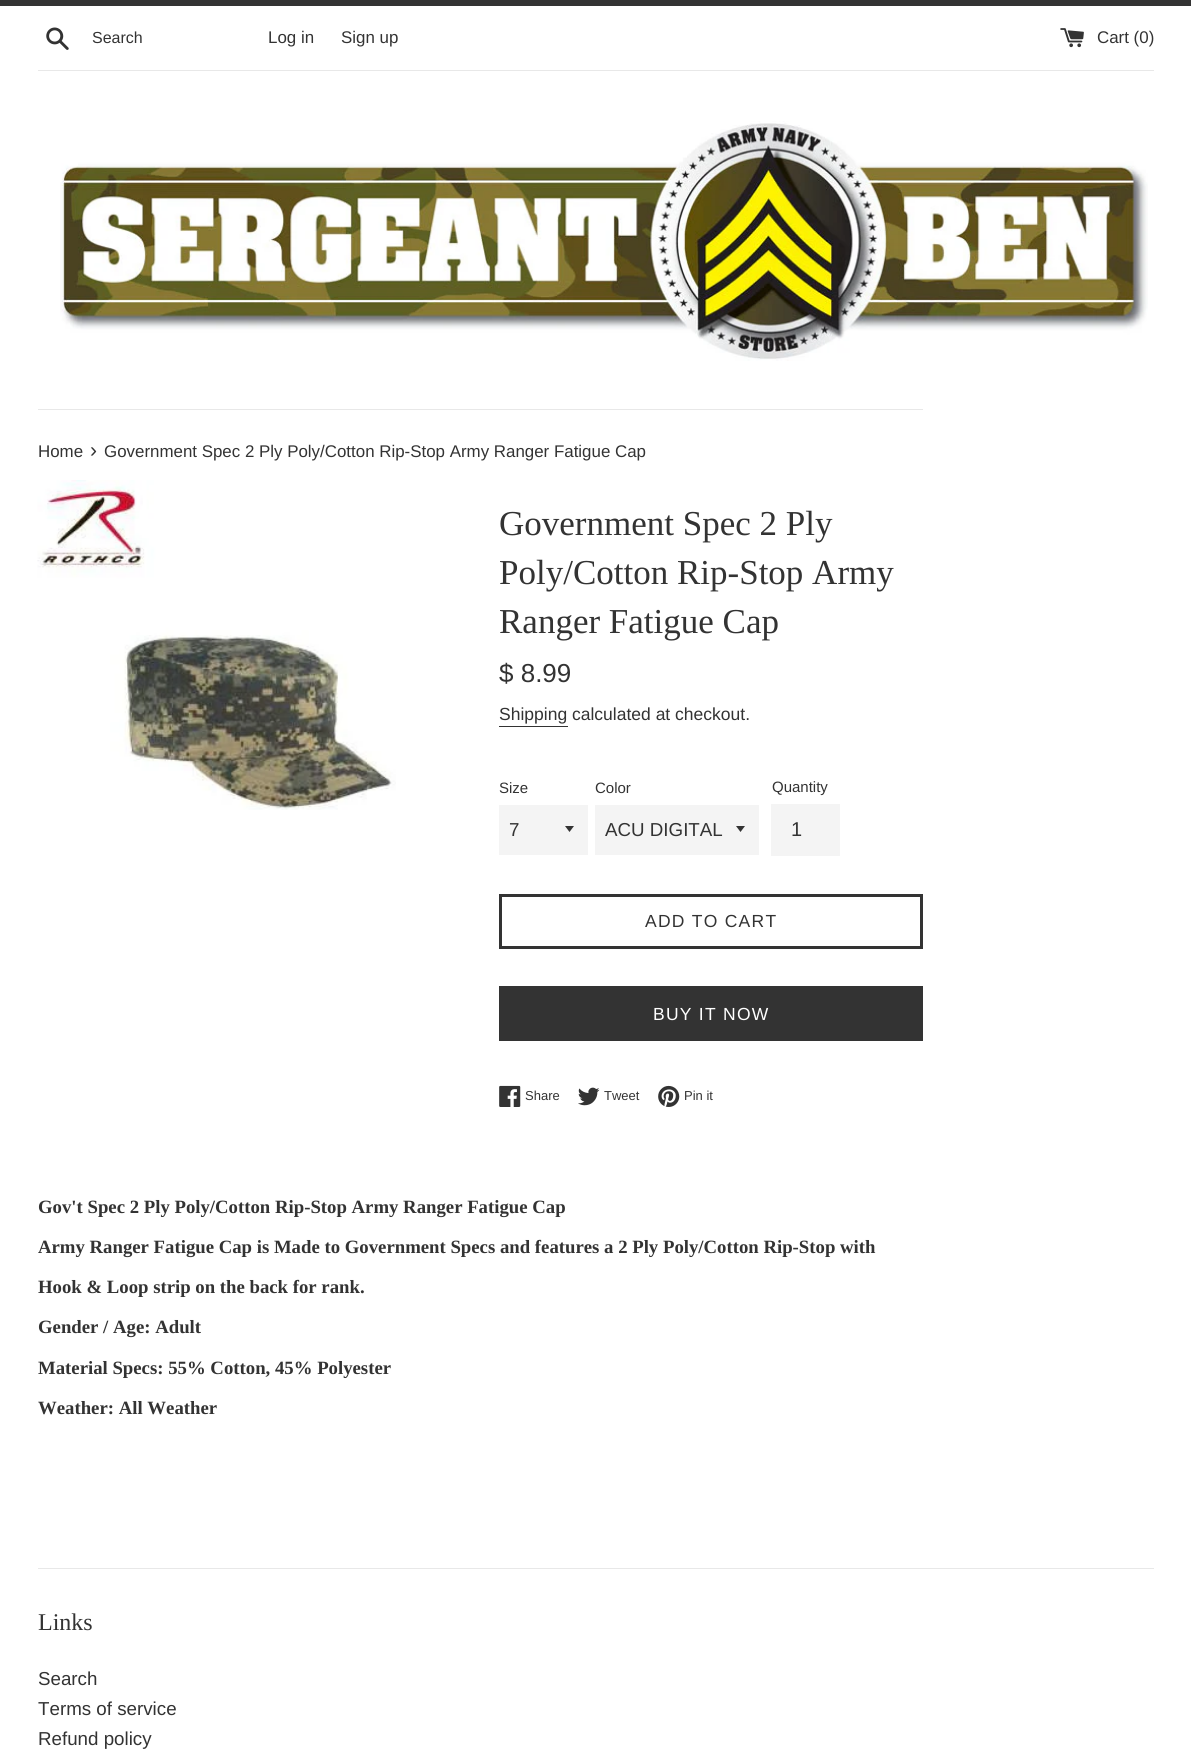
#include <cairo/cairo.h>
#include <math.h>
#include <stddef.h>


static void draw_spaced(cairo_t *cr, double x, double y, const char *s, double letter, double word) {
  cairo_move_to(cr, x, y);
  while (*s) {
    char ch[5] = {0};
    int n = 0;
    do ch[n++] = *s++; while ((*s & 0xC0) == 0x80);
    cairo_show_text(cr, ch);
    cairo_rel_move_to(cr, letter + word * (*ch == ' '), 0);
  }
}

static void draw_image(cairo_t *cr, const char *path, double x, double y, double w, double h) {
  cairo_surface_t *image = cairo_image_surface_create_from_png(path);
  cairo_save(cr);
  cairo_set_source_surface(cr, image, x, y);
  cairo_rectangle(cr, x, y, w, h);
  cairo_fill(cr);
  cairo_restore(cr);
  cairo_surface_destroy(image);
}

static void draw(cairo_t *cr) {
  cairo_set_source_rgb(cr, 1, 1, 1);
  cairo_paint(cr);
  cairo_set_source_rgb(cr, 51 / 255.0, 51 / 255.0, 51 / 255.0);
  cairo_rectangle(cr, 0, 0, 1191, 6);
  cairo_fill(cr);
  draw_image(cr, "images/1.png", 46, 27, 23, 23);
  draw_image(cr, "images/2.png", 1060, 28, 24, 20);
  cairo_set_source_rgb(cr, 232 / 255.0, 232 / 255.0, 232 / 255.0);
  cairo_rectangle(cr, 38, 70, 1116, 1);
  cairo_fill(cr);
  draw_image(cr, "images/3.png", 60, 121, 1088, 240);
  cairo_rectangle(cr, 38, 409, 885, 1);
  cairo_fill(cr);
  draw_image(cr, "images/4.png", 37, 480, 359, 330);
  cairo_set_source_rgb(cr, 51 / 255.0, 51 / 255.0, 51 / 255.0);
  cairo_rectangle(cr, 499, 726, 69, 1);
  cairo_fill(cr);
  cairo_set_source_rgb(cr, 244 / 255.0, 244 / 255.0, 244 / 255.0);
  cairo_rectangle(cr, 499, 805, 89, 50);
  cairo_fill(cr);
  cairo_set_source_rgb(cr, 51 / 255.0, 51 / 255.0, 51 / 255.0);
  cairo_new_path(cr);
  cairo_move_to(cr, 565, 826);
  cairo_line_to(cr, 569.5, 832);
  cairo_line_to(cr, 574, 826);
  cairo_close_path(cr);
  cairo_fill(cr);
  cairo_set_source_rgb(cr, 244 / 255.0, 244 / 255.0, 244 / 255.0);
  cairo_rectangle(cr, 595, 805, 164, 50);
  cairo_fill(cr);
  cairo_set_source_rgb(cr, 51 / 255.0, 51 / 255.0, 51 / 255.0);
  cairo_new_path(cr);
  cairo_move_to(cr, 736, 826);
  cairo_line_to(cr, 740.5, 832);
  cairo_line_to(cr, 745, 826);
  cairo_close_path(cr);
  cairo_fill(cr);
  cairo_set_source_rgb(cr, 244 / 255.0, 244 / 255.0, 244 / 255.0);
  cairo_rectangle(cr, 771, 804, 69, 52);
  cairo_fill(cr);
  cairo_rectangle(cr, 500.5, 895.5, 421, 52);
  cairo_set_source_rgb(cr, 51 / 255.0, 51 / 255.0, 51 / 255.0);
  cairo_set_line_width(cr, 3);
  cairo_stroke(cr);
  cairo_rectangle(cr, 499, 986, 424, 55);
  cairo_fill(cr);
  draw_image(cr, "images/5.png", 499, 1085, 22, 22);
  draw_image(cr, "images/6.png", 578, 1087, 22, 19);
  draw_image(cr, "images/7.png", 658, 1085, 22, 22);
  cairo_set_source_rgb(cr, 232 / 255.0, 232 / 255.0, 232 / 255.0);
  cairo_rectangle(cr, 38, 1568, 1116, 1);
  cairo_fill(cr);
  cairo_select_font_face(cr, "Liberation Sans", CAIRO_FONT_SLANT_NORMAL, CAIRO_FONT_WEIGHT_NORMAL);
  cairo_set_font_size(cr, 16);
  cairo_set_source_rgb(cr, 51 / 255.0, 51 / 255.0, 51 / 255.0);
  cairo_move_to(cr, 92, 43);
  cairo_show_text(cr, "Search");
  cairo_set_font_size(cr, 16.9);
  cairo_move_to(cr, 268, 43);
  cairo_show_text(cr, "Log in");
  cairo_move_to(cr, 341, 43);
  cairo_show_text(cr, "Sign up");
  cairo_move_to(cr, 1097, 43);
  cairo_show_text(cr, "Cart (0)");
  cairo_move_to(cr, 38, 457);
  cairo_show_text(cr, "Home");
  cairo_set_font_size(cr, 21);
  cairo_move_to(cr, 90, 457);
  cairo_show_text(cr, "›");
  cairo_set_font_size(cr, 16.9);
  cairo_move_to(cr, 104, 457);
  cairo_show_text(cr, "Government Spec 2 Ply Poly/Cotton Rip-Stop Army Ranger Fatigue Cap");
  cairo_select_font_face(cr, "Liberation Serif", CAIRO_FONT_SLANT_NORMAL, CAIRO_FONT_WEIGHT_NORMAL);
  cairo_set_font_size(cr, 35);
  cairo_move_to(cr, 499, 535);
  cairo_show_text(cr, "Government Spec 2 Ply");
  cairo_move_to(cr, 499, 584);
  cairo_show_text(cr, "Poly/Cotton Rip-Stop Army");
  cairo_move_to(cr, 499, 633);
  cairo_show_text(cr, "Ranger Fatigue Cap");
  cairo_select_font_face(cr, "Liberation Sans", CAIRO_FONT_SLANT_NORMAL, CAIRO_FONT_WEIGHT_NORMAL);
  cairo_set_font_size(cr, 26);
  cairo_move_to(cr, 499, 682);
  cairo_show_text(cr, "$ 8.99");
  cairo_set_font_size(cr, 17.5);
  cairo_move_to(cr, 499, 720);
  cairo_show_text(cr, "Shipping calculated at checkout.");
  cairo_set_font_size(cr, 15);
  cairo_move_to(cr, 499, 793);
  cairo_show_text(cr, "Size");
  cairo_set_font_size(cr, 18.75);
  cairo_move_to(cr, 509, 836);
  cairo_show_text(cr, "7");
  cairo_set_font_size(cr, 15);
  cairo_move_to(cr, 595, 793);
  cairo_show_text(cr, "Color");
  cairo_set_font_size(cr, 18.75);
  cairo_move_to(cr, 605, 836);
  cairo_show_text(cr, "ACU DIGITAL");
  cairo_set_font_size(cr, 15);
  cairo_move_to(cr, 772, 792);
  cairo_show_text(cr, "Quantity");
  cairo_set_font_size(cr, 20);
  cairo_move_to(cr, 791, 836);
  cairo_show_text(cr, "1");
  cairo_set_font_size(cr, 17.5);
  draw_spaced(cr, 645, 927, "ADD TO CART", 1.25, 0);
  cairo_set_source_rgb(cr, 1, 1, 1);
  draw_spaced(cr, 653, 1020, "BUY IT NOW", 1.25, 0);
  cairo_set_font_size(cr, 13);
  cairo_set_source_rgb(cr, 51 / 255.0, 51 / 255.0, 51 / 255.0);
  cairo_move_to(cr, 525, 1100);
  cairo_show_text(cr, "Share");
  cairo_move_to(cr, 604, 1100);
  cairo_show_text(cr, "Tweet");
  cairo_move_to(cr, 684, 1100);
  cairo_show_text(cr, "Pin it");
  cairo_select_font_face(cr, "Liberation Serif", CAIRO_FONT_SLANT_NORMAL, CAIRO_FONT_WEIGHT_BOLD);
  cairo_set_font_size(cr, 18.75);
  cairo_move_to(cr, 38, 1213);
  cairo_show_text(cr, "Gov't Spec 2 Ply Poly/Cotton Rip-Stop Army Ranger Fatigue Cap");
  cairo_move_to(cr, 38, 1253);
  cairo_show_text(cr, "Army Ranger Fatigue Cap is Made to Government Specs and features a 2 Ply Poly/Cotton Rip-Stop with");
  cairo_move_to(cr, 38, 1293);
  cairo_show_text(cr, "Hook & Loop strip on the back for rank.");
  cairo_move_to(cr, 38, 1333);
  cairo_show_text(cr, "Gender / Age: Adult");
  cairo_move_to(cr, 38, 1374);
  cairo_show_text(cr, "Material Specs: 55% Cotton, 45% Polyester");
  cairo_move_to(cr, 38, 1414);
  cairo_show_text(cr, "Weather: All Weather");
  cairo_select_font_face(cr, "Liberation Serif", CAIRO_FONT_SLANT_NORMAL, CAIRO_FONT_WEIGHT_NORMAL);
  cairo_set_font_size(cr, 24);
  cairo_move_to(cr, 38, 1630);
  cairo_show_text(cr, "Links");
  cairo_select_font_face(cr, "Liberation Sans", CAIRO_FONT_SLANT_NORMAL, CAIRO_FONT_WEIGHT_NORMAL);
  cairo_set_font_size(cr, 18.75);
  cairo_move_to(cr, 38, 1685);
  cairo_show_text(cr, "Search");
  cairo_move_to(cr, 38, 1715);
  cairo_show_text(cr, "Terms of service");
  cairo_move_to(cr, 38, 1745);
  cairo_show_text(cr, "Refund policy");
}

int main(void) {
  cairo_surface_t *surface = cairo_image_surface_create(CAIRO_FORMAT_RGB24, 1191, 1762);
  cairo_t *cr = cairo_create(surface);
  cairo_font_options_t *options = cairo_font_options_create();
  cairo_font_options_set_hint_metrics(options, CAIRO_HINT_METRICS_OFF);
  cairo_font_options_set_hint_style(options, CAIRO_HINT_STYLE_NONE);
  cairo_set_font_options(cr, options);
  cairo_set_miter_limit(cr, 4);
  draw(cr);
  cairo_surface_write_to_png(surface, "out.png");
  cairo_font_options_destroy(options);
  cairo_destroy(cr);
  cairo_surface_destroy(surface);
  return 0;
}
